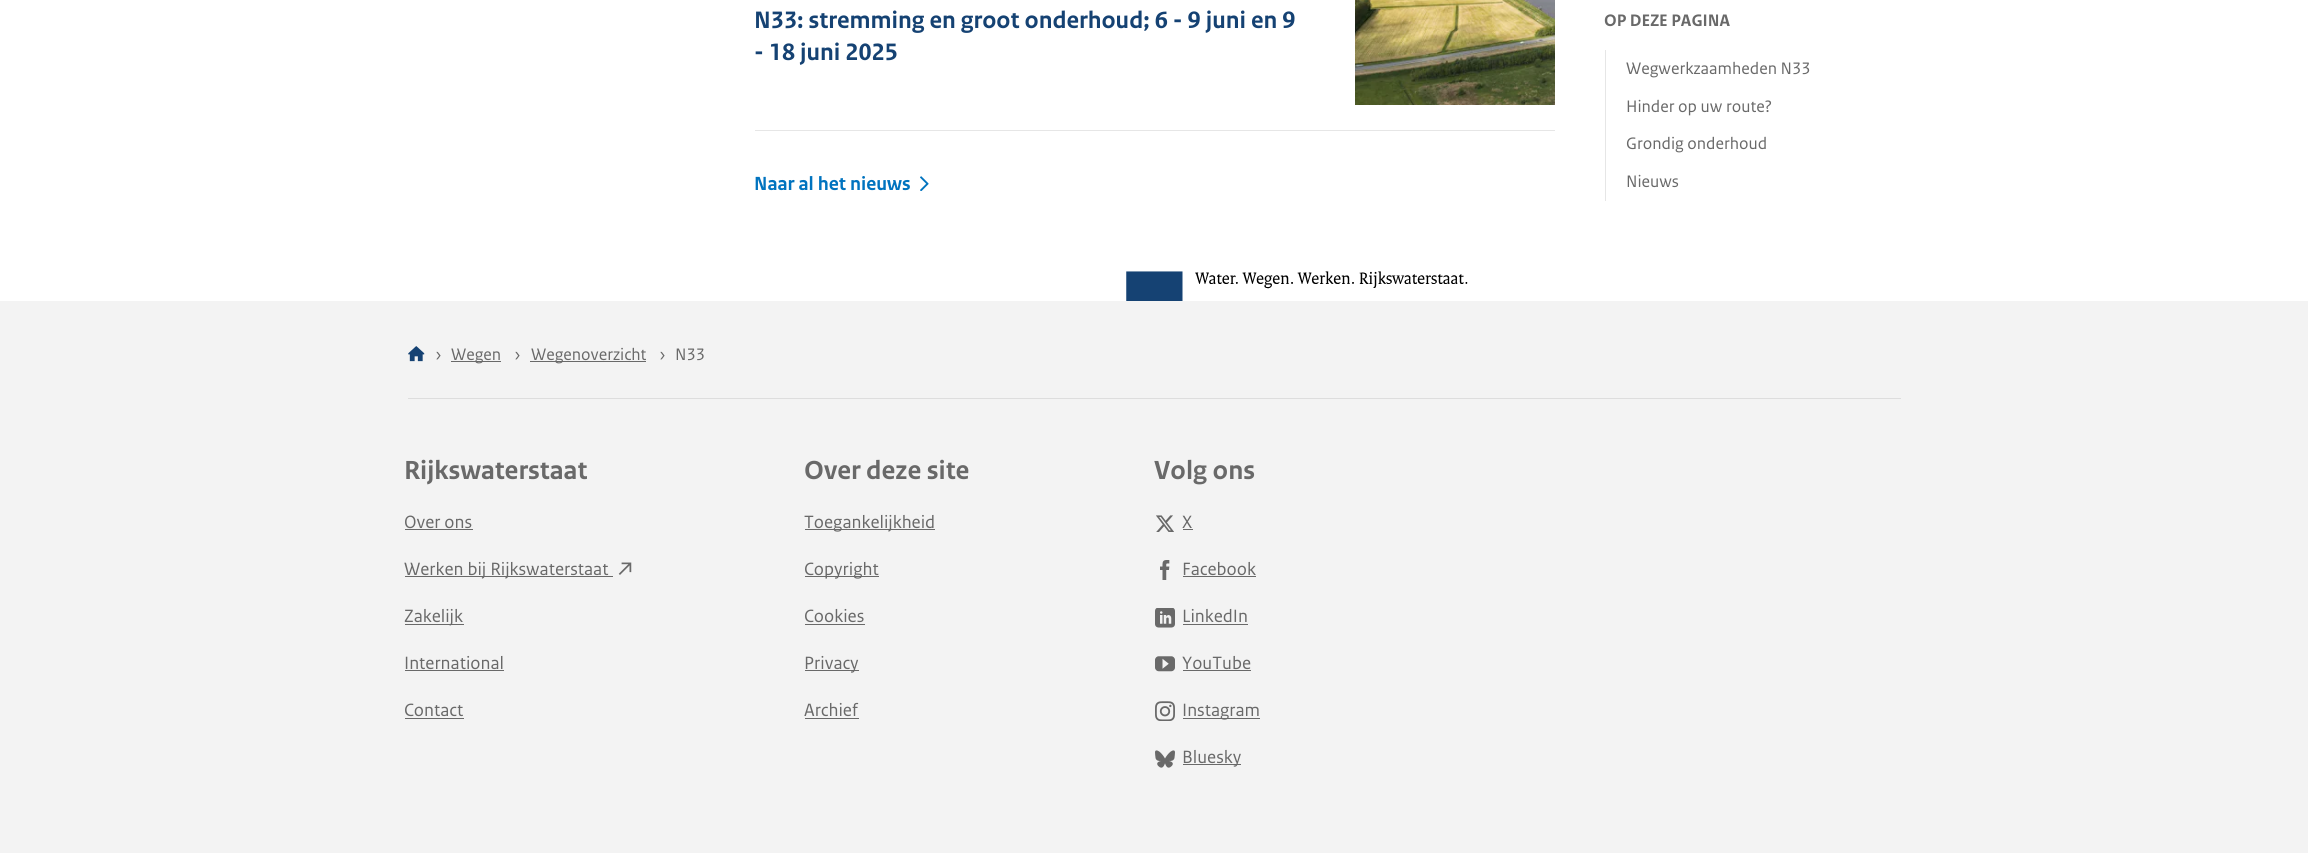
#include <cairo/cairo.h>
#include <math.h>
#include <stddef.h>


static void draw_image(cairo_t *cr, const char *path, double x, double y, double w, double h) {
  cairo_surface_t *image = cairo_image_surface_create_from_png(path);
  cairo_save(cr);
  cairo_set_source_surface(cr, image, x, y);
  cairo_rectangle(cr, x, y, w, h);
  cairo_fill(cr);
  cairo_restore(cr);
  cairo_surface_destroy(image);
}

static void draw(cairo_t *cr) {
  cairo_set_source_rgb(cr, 1, 1, 1);
  cairo_paint(cr);
  cairo_set_source_rgb(cr, 230 / 255.0, 230 / 255.0, 230 / 255.0);
  cairo_rectangle(cr, 755, 130, 800, 1);
  cairo_fill(cr);
  draw_image(cr, "images/1.png", 1355, 0, 200, 105);
  draw_image(cr, "images/2.png", 920, 176, 9, 15);
  cairo_rectangle(cr, 1605, 50, 1, 151);
  cairo_fill(cr);
  cairo_set_source_rgb(cr, 243 / 255.0, 243 / 255.0, 243 / 255.0);
  cairo_rectangle(cr, 0, 301, 2308, 552);
  cairo_fill(cr);
  draw_image(cr, "images/3.png", 1126, 271, 342, 30);
  cairo_set_source_rgb(cr, 221 / 255.0, 221 / 255.0, 221 / 255.0);
  cairo_rectangle(cr, 408, 398, 1493, 1);
  cairo_fill(cr);
  draw_image(cr, "images/4.png", 408, 346, 17, 16);
  cairo_set_source_rgb(cr, 105 / 255.0, 105 / 255.0, 105 / 255.0);
  cairo_rectangle(cr, 451, 361, 50, 1);
  cairo_fill(cr);
  cairo_rectangle(cr, 530, 361, 116, 1);
  cairo_fill(cr);
  cairo_rectangle(cr, 405, 529, 68, 1);
  cairo_fill(cr);
  cairo_rectangle(cr, 405, 576, 208, 1);
  cairo_fill(cr);
  draw_image(cr, "images/5.png", 618, 562, 14, 13);
  cairo_rectangle(cr, 405, 624, 59, 1);
  cairo_fill(cr);
  cairo_rectangle(cr, 405, 670, 99, 1);
  cairo_fill(cr);
  cairo_rectangle(cr, 405, 718, 59, 1);
  cairo_fill(cr);
  cairo_rectangle(cr, 805, 529, 130, 1);
  cairo_fill(cr);
  cairo_rectangle(cr, 805, 576, 74, 1);
  cairo_fill(cr);
  cairo_rectangle(cr, 805, 624, 60, 1);
  cairo_fill(cr);
  cairo_rectangle(cr, 805, 670, 54, 1);
  cairo_fill(cr);
  cairo_rectangle(cr, 805, 718, 54, 1);
  cairo_fill(cr);
  draw_image(cr, "images/6.png", 1156, 515, 18, 17);
  cairo_rectangle(cr, 1183, 529, 10, 1);
  cairo_fill(cr);
  draw_image(cr, "images/7.png", 1160, 560, 10, 20);
  cairo_rectangle(cr, 1183, 576, 73, 1);
  cairo_fill(cr);
  draw_image(cr, "images/8.png", 1155, 608, 20, 20);
  cairo_rectangle(cr, 1183, 624, 65, 1);
  cairo_fill(cr);
  draw_image(cr, "images/9.png", 1155, 656, 20, 16);
  cairo_rectangle(cr, 1183, 670, 68, 1);
  cairo_fill(cr);
  draw_image(cr, "images/10.png", 1155, 701, 20, 20);
  cairo_rectangle(cr, 1183, 718, 77, 1);
  cairo_fill(cr);
  draw_image(cr, "images/11.png", 1155, 750, 20, 18);
  cairo_rectangle(cr, 1183, 764, 58, 1);
  cairo_fill(cr);
  cairo_select_font_face(cr, "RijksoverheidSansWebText", CAIRO_FONT_SLANT_NORMAL, CAIRO_FONT_WEIGHT_BOLD);
  cairo_set_font_size(cr, 25);
  cairo_set_source_rgb(cr, 21 / 255.0, 66 / 255.0, 115 / 255.0);
  cairo_move_to(cr, 754, 28);
  cairo_show_text(cr, "N33: stremming en groot onderhoud; 6 - 9 juni en 9");
  cairo_move_to(cr, 754, 60);
  cairo_show_text(cr, "- 18 juni 2025");
  cairo_set_font_size(cr, 20);
  cairo_set_source_rgb(cr, 0, 115 / 255.0, 191 / 255.0);
  cairo_move_to(cr, 754, 190);
  cairo_show_text(cr, "Naar al het nieuws");
  cairo_set_font_size(cr, 17.5);
  cairo_set_source_rgb(cr, 105 / 255.0, 105 / 255.0, 105 / 255.0);
  cairo_move_to(cr, 1604, 26);
  cairo_show_text(cr, "OP DEZE PAGINA");
  cairo_select_font_face(cr, "RijksoverheidSansWebText", CAIRO_FONT_SLANT_NORMAL, CAIRO_FONT_WEIGHT_NORMAL);
  cairo_move_to(cr, 1626, 74);
  cairo_show_text(cr, "Wegwerkzaamheden N33");
  cairo_move_to(cr, 1626, 112);
  cairo_show_text(cr, "Hinder op uw route?");
  cairo_move_to(cr, 1626, 149);
  cairo_show_text(cr, "Grondig onderhoud");
  cairo_move_to(cr, 1626, 187);
  cairo_show_text(cr, "Nieuws");
  cairo_move_to(cr, 435, 360);
  cairo_show_text(cr, "›");
  cairo_move_to(cr, 451, 360);
  cairo_show_text(cr, "Wegen");
  cairo_move_to(cr, 514, 360);
  cairo_show_text(cr, "›");
  cairo_move_to(cr, 531, 360);
  cairo_show_text(cr, "Wegenoverzicht");
  cairo_move_to(cr, 659, 360);
  cairo_show_text(cr, "›");
  cairo_move_to(cr, 675, 360);
  cairo_show_text(cr, "N33");
  cairo_select_font_face(cr, "RijksoverheidSansWebText", CAIRO_FONT_SLANT_NORMAL, CAIRO_FONT_WEIGHT_BOLD);
  cairo_set_font_size(cr, 27.5);
  cairo_move_to(cr, 404, 479);
  cairo_show_text(cr, "Rijkswaterstaat");
  cairo_select_font_face(cr, "RijksoverheidSansWebText", CAIRO_FONT_SLANT_NORMAL, CAIRO_FONT_WEIGHT_NORMAL);
  cairo_set_font_size(cr, 18.75);
  cairo_move_to(cr, 404, 528);
  cairo_show_text(cr, "Over ons");
  cairo_move_to(cr, 404, 575);
  cairo_show_text(cr, "Werken bij Rijkswaterstaat");
  cairo_move_to(cr, 404, 622);
  cairo_show_text(cr, "Zakelijk");
  cairo_move_to(cr, 404, 669);
  cairo_show_text(cr, "International");
  cairo_move_to(cr, 404, 716);
  cairo_show_text(cr, "Contact");
  cairo_select_font_face(cr, "RijksoverheidSansWebText", CAIRO_FONT_SLANT_NORMAL, CAIRO_FONT_WEIGHT_BOLD);
  cairo_set_font_size(cr, 27.5);
  cairo_move_to(cr, 804, 479);
  cairo_show_text(cr, "Over deze site");
  cairo_select_font_face(cr, "RijksoverheidSansWebText", CAIRO_FONT_SLANT_NORMAL, CAIRO_FONT_WEIGHT_NORMAL);
  cairo_set_font_size(cr, 18.75);
  cairo_move_to(cr, 804, 528);
  cairo_show_text(cr, "Toegankelijkheid");
  cairo_move_to(cr, 804, 575);
  cairo_show_text(cr, "Copyright");
  cairo_move_to(cr, 804, 622);
  cairo_show_text(cr, "Cookies");
  cairo_move_to(cr, 804, 669);
  cairo_show_text(cr, "Privacy");
  cairo_move_to(cr, 804, 716);
  cairo_show_text(cr, "Archief");
  cairo_select_font_face(cr, "RijksoverheidSansWebText", CAIRO_FONT_SLANT_NORMAL, CAIRO_FONT_WEIGHT_BOLD);
  cairo_set_font_size(cr, 27.5);
  cairo_move_to(cr, 1154, 479);
  cairo_show_text(cr, "Volg ons");
  cairo_select_font_face(cr, "RijksoverheidSansWebText", CAIRO_FONT_SLANT_NORMAL, CAIRO_FONT_WEIGHT_NORMAL);
  cairo_set_font_size(cr, 18.75);
  cairo_move_to(cr, 1182, 528);
  cairo_show_text(cr, "X");
  cairo_move_to(cr, 1182, 575);
  cairo_show_text(cr, "Facebook");
  cairo_move_to(cr, 1182, 622);
  cairo_show_text(cr, "LinkedIn");
  cairo_move_to(cr, 1182, 669);
  cairo_show_text(cr, "YouTube");
  cairo_move_to(cr, 1182, 716);
  cairo_show_text(cr, "Instagram");
  cairo_move_to(cr, 1182, 763);
  cairo_show_text(cr, "Bluesky");
}

int main(void) {
  cairo_surface_t *surface = cairo_image_surface_create(CAIRO_FORMAT_RGB24, 2308, 853);
  cairo_t *cr = cairo_create(surface);
  cairo_font_options_t *options = cairo_font_options_create();
  cairo_font_options_set_hint_metrics(options, CAIRO_HINT_METRICS_OFF);
  cairo_font_options_set_hint_style(options, CAIRO_HINT_STYLE_NONE);
  cairo_set_font_options(cr, options);
  cairo_set_miter_limit(cr, 4);
  draw(cr);
  cairo_surface_write_to_png(surface, "out.png");
  cairo_font_options_destroy(options);
  cairo_destroy(cr);
  cairo_surface_destroy(surface);
  return 0;
}
